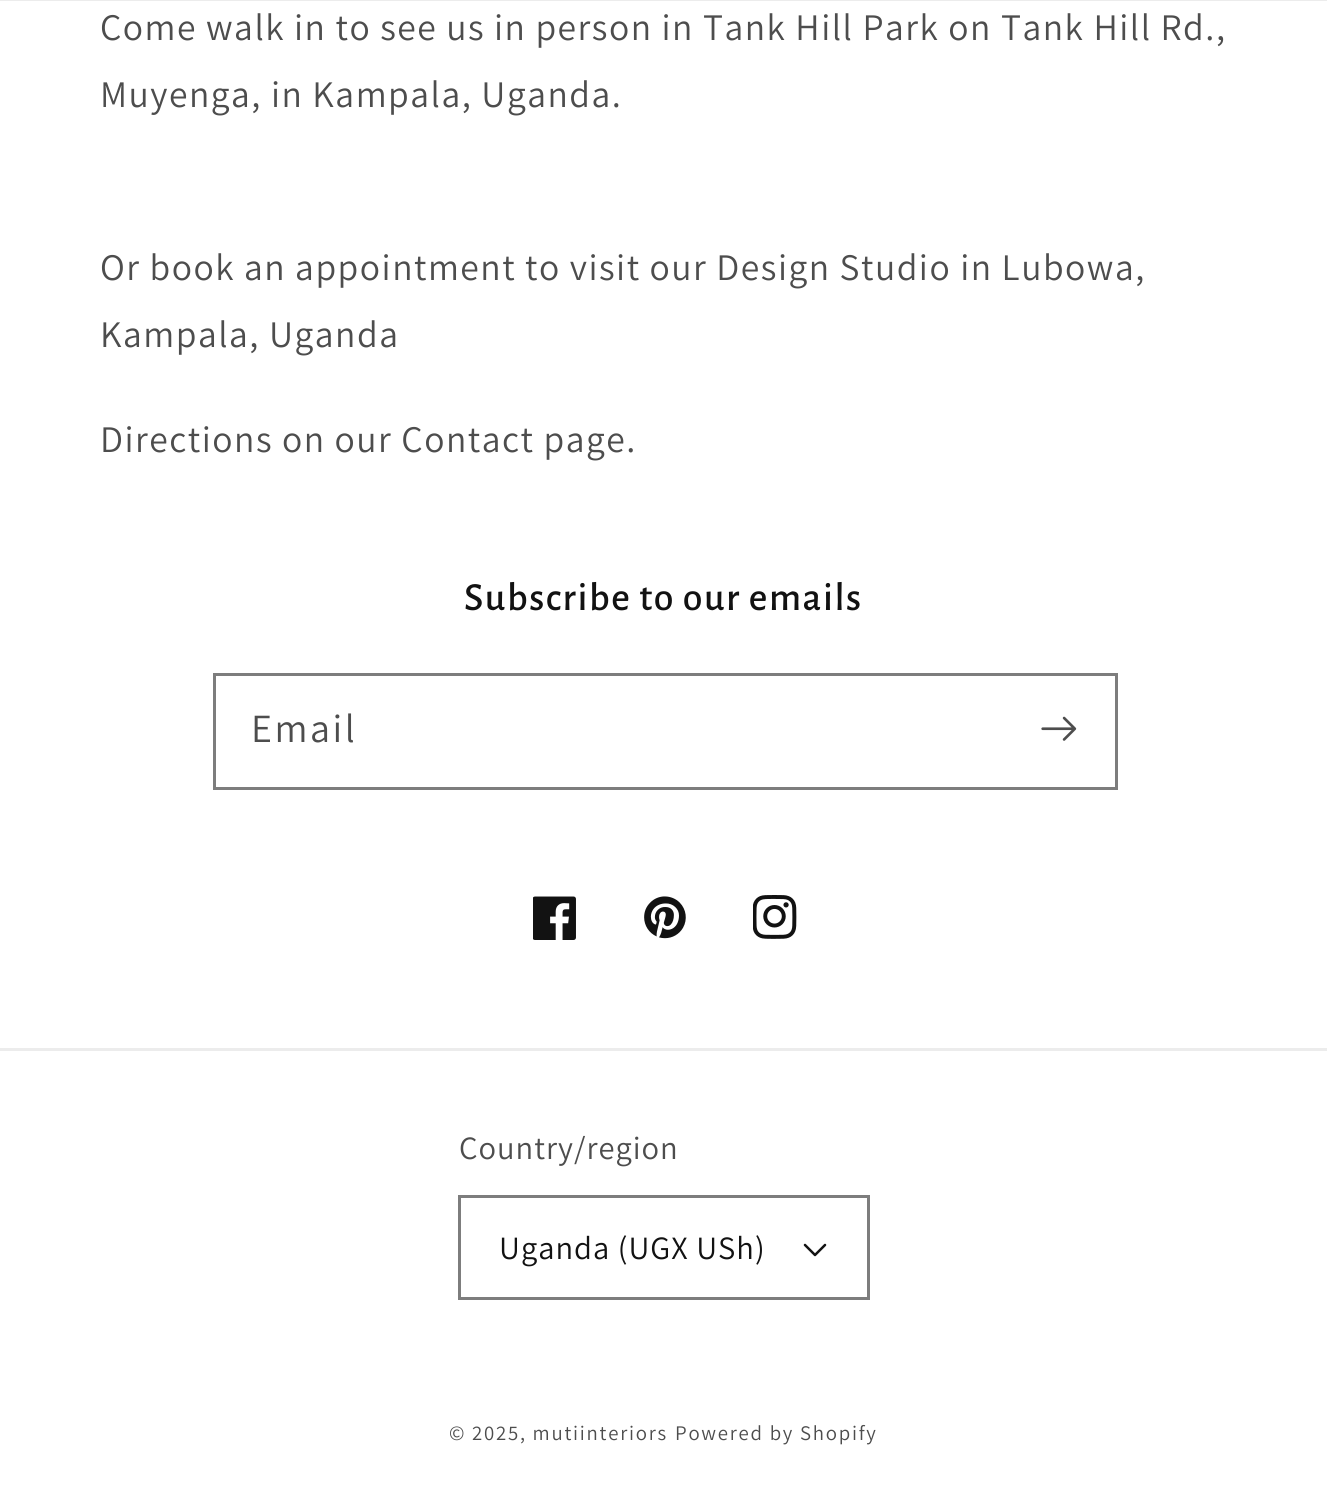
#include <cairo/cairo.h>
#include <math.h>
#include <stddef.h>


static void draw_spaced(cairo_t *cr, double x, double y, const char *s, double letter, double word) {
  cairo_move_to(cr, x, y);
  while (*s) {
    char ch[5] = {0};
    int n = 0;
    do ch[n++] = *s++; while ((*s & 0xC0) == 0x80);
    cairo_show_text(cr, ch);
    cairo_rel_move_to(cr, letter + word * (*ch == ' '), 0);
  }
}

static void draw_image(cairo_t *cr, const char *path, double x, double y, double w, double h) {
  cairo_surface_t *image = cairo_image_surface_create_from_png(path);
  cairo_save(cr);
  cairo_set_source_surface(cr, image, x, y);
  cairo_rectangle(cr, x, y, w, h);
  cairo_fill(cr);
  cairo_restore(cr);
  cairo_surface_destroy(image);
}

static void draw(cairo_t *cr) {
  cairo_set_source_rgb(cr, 1, 1, 1);
  cairo_paint(cr);
  cairo_set_source_rgb(cr, 236 / 255.0, 236 / 255.0, 236 / 255.0);
  cairo_rectangle(cr, 0, 0, 1327, 1);
  cairo_fill(cr);
  cairo_rectangle(cr, 214.5, 674.5, 902, 114);
  cairo_set_source_rgb(cr, 125 / 255.0, 125 / 255.0, 125 / 255.0);
  cairo_set_line_width(cr, 3);
  cairo_stroke(cr);
  draw_image(cr, "images/1.png", 1041, 716, 36, 25);
  draw_image(cr, "images/2.png", 533, 896, 43, 44);
  draw_image(cr, "images/3.png", 644, 896, 42, 43);
  draw_image(cr, "images/4.png", 753, 895, 44, 44);
  cairo_set_source_rgb(cr, 236 / 255.0, 236 / 255.0, 236 / 255.0);
  cairo_rectangle(cr, 0, 1048, 1327, 3);
  cairo_fill(cr);
  cairo_rectangle(cr, 459.5, 1196.5, 409, 102);
  cairo_set_source_rgb(cr, 125 / 255.0, 125 / 255.0, 125 / 255.0);
  cairo_stroke(cr);
  draw_image(cr, "images/5.png", 803, 1243, 24, 14);
  cairo_select_font_face(cr, "Assistant", CAIRO_FONT_SLANT_NORMAL, CAIRO_FONT_WEIGHT_NORMAL);
  cairo_set_font_size(cr, 37.5);
  cairo_set_source_rgb(cr, 77 / 255.0, 77 / 255.0, 77 / 255.0);
  draw_spaced(cr, 100, 40, "Come walk in to see us in person in Tank Hill Park on Tank Hill Rd.,", 1.5, 0);
  draw_spaced(cr, 100, 107, "Muyenga, in Kampala, Uganda.", 1.5, 0);
  draw_spaced(cr, 100, 280, "Or book an appointment to visit our Design Studio in Lubowa,", 1.5, 0);
  draw_spaced(cr, 100, 347, "Kampala, Uganda", 1.5, 0);
  draw_spaced(cr, 100, 452, "Directions on our Contact page.", 1.5, 0);
  cairo_select_font_face(cr, "Alegreya Sans Medium", CAIRO_FONT_SLANT_NORMAL, CAIRO_FONT_WEIGHT_NORMAL);
  cairo_set_font_size(cr, 40);
  cairo_set_source_rgb(cr, 18 / 255.0, 18 / 255.0, 18 / 255.0);
  draw_spaced(cr, 464, 610, "Subscribe to our emails", 1.5, 0);
  cairo_select_font_face(cr, "Assistant", CAIRO_FONT_SLANT_NORMAL, CAIRO_FONT_WEIGHT_NORMAL);
  cairo_set_source_rgb(cr, 77 / 255.0, 77 / 255.0, 77 / 255.0);
  draw_spaced(cr, 251, 742, "Email", 2.5, 0);
  cairo_set_font_size(cr, 32.5);
  draw_spaced(cr, 459, 1159, "Country/region", 1, 0);
  cairo_set_source_rgb(cr, 18 / 255.0, 18 / 255.0, 18 / 255.0);
  draw_spaced(cr, 499, 1259, "Uganda (UGX USh)", 1, 0);
  cairo_set_font_size(cr, 20.75);
  cairo_set_source_rgb(cr, 77 / 255.0, 77 / 255.0, 77 / 255.0);
  draw_spaced(cr, 449, 1440, "© 2025, mutiinteriors", 1.75, 0);
  draw_spaced(cr, 675, 1440, "Powered by Shopify", 1.75, 0);
}

int main(void) {
  cairo_surface_t *surface = cairo_image_surface_create(CAIRO_FORMAT_RGB24, 1327, 1509);
  cairo_t *cr = cairo_create(surface);
  cairo_font_options_t *options = cairo_font_options_create();
  cairo_font_options_set_hint_metrics(options, CAIRO_HINT_METRICS_OFF);
  cairo_font_options_set_hint_style(options, CAIRO_HINT_STYLE_NONE);
  cairo_set_font_options(cr, options);
  cairo_set_miter_limit(cr, 4);
  draw(cr);
  cairo_surface_write_to_png(surface, "out.png");
  cairo_font_options_destroy(options);
  cairo_destroy(cr);
  cairo_surface_destroy(surface);
  return 0;
}
